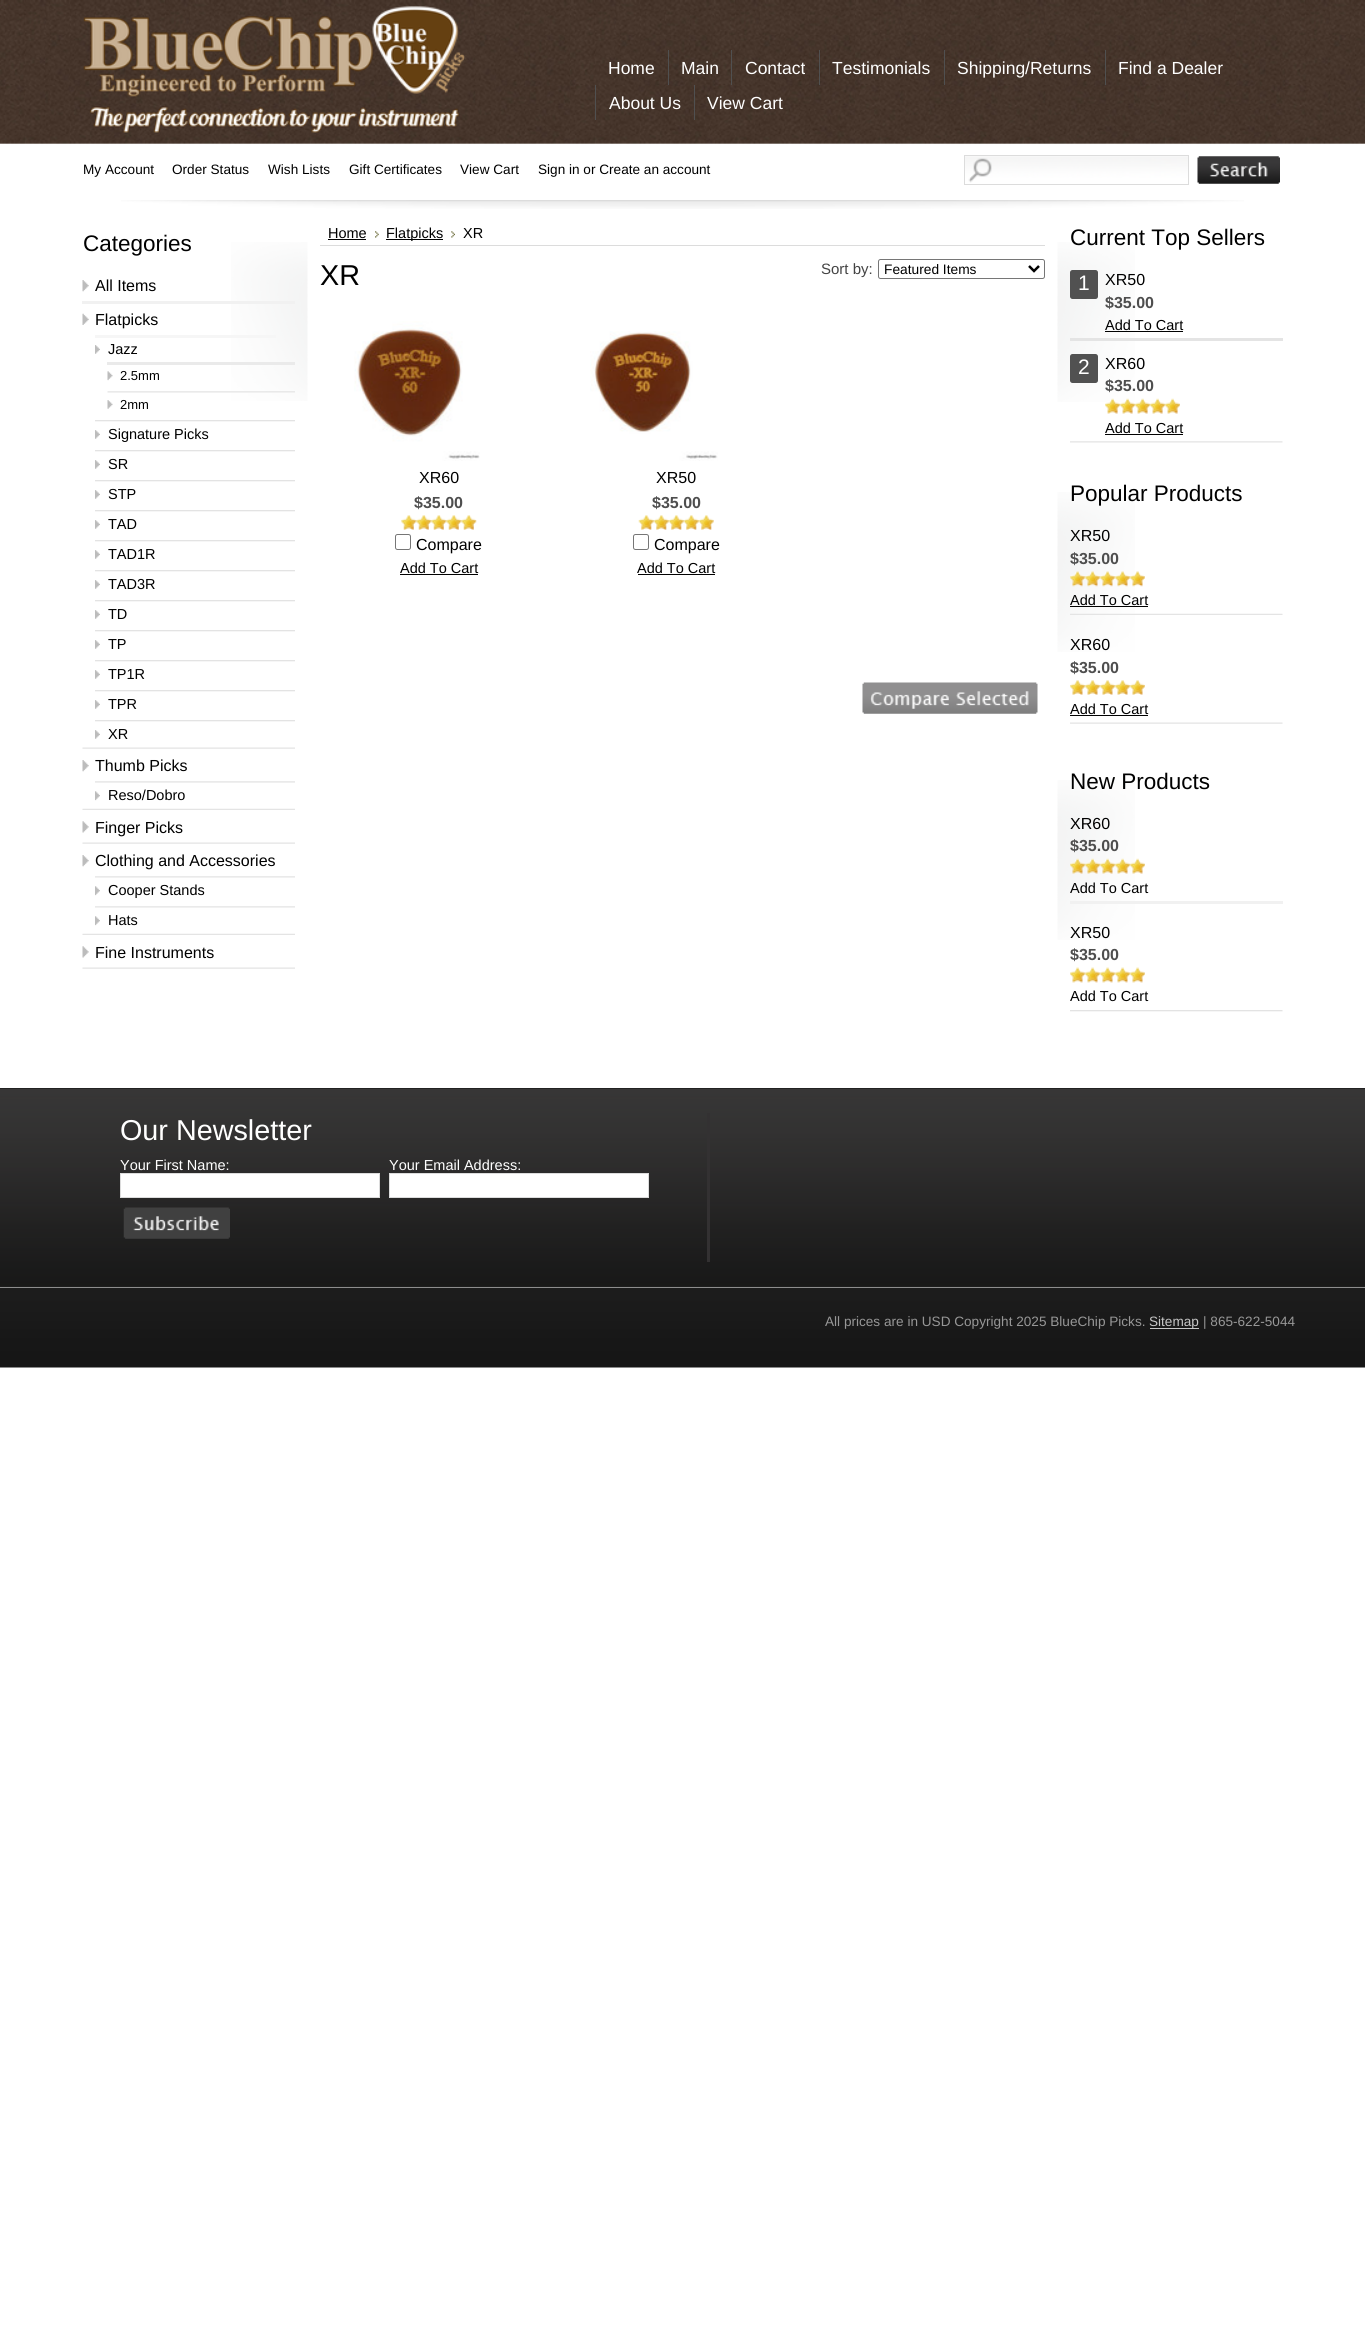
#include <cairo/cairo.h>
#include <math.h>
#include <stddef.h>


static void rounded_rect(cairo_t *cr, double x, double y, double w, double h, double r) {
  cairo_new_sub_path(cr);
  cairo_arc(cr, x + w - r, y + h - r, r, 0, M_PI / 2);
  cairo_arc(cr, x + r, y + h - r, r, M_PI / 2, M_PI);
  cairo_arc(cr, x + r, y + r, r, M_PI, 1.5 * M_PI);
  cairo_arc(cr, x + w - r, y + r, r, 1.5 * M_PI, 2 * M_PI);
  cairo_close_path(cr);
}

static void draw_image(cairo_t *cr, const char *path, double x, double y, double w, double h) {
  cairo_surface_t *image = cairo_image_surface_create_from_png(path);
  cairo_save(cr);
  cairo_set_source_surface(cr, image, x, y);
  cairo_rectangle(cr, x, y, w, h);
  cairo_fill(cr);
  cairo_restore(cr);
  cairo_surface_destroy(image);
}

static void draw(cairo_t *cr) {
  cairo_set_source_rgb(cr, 1, 1, 1);
  cairo_paint(cr);
  draw_image(cr, "images/1.png", 0, 0, 1365, 144);
  draw_image(cr, "images/2.png", 83, 6, 382, 128);
  cairo_set_source_rgb(cr, 80 / 255.0, 80 / 255.0, 80 / 255.0);
  cairo_rectangle(cr, 668, 50, 1, 35);
  cairo_fill(cr);
  cairo_rectangle(cr, 731, 50, 1, 35);
  cairo_fill(cr);
  cairo_rectangle(cr, 819, 50, 1, 35);
  cairo_fill(cr);
  cairo_rectangle(cr, 944, 50, 1, 35);
  cairo_fill(cr);
  cairo_rectangle(cr, 1105, 50, 1, 35);
  cairo_fill(cr);
  cairo_rectangle(cr, 595, 85, 1, 35);
  cairo_fill(cr);
  cairo_rectangle(cr, 694, 85, 1, 35);
  cairo_fill(cr);
  draw_image(cr, "images/3.png", 965, 156, 223, 27);
  cairo_rectangle(cr, 964.5, 155.5, 224, 29);
  cairo_set_source_rgb(cr, 220 / 255.0, 220 / 255.0, 220 / 255.0);
  cairo_set_line_width(cr, 1);
  cairo_stroke(cr);
  draw_image(cr, "images/4.png", 1197, 156, 83, 28);
  draw_image(cr, "images/5.png", 121, 200, 1123, 9);
  draw_image(cr, "images/6.png", 231, 242, 77, 159);
  cairo_set_source_rgb(cr, 241 / 255.0, 241 / 255.0, 241 / 255.0);
  cairo_rectangle(cr, 82, 301, 213, 3);
  cairo_fill(cr);
  draw_image(cr, "images/7.png", 82, 280, 7, 12);
  draw_image(cr, "images/8.png", 82, 747, 213, 2);
  draw_image(cr, "images/9.png", 82, 313, 7, 12);
  cairo_set_source_rgb(cr, 246 / 255.0, 246 / 255.0, 246 / 255.0);
  cairo_rectangle(cr, 95, 335, 181, 3);
  cairo_fill(cr);
  draw_image(cr, "images/10.png", 95, 345, 5, 9);
  cairo_set_source_rgb(cr, 234 / 255.0, 234 / 255.0, 234 / 255.0);
  cairo_rectangle(cr, 107, 362, 188, 3);
  cairo_fill(cr);
  draw_image(cr, "images/11.png", 107, 371, 6, 10);
  draw_image(cr, "images/12.png", 107, 391, 188, 2);
  draw_image(cr, "images/13.png", 107, 400, 6, 9);
  draw_image(cr, "images/14.png", 95, 420, 200, 2);
  draw_image(cr, "images/10.png", 95, 430, 5, 9);
  draw_image(cr, "images/14.png", 95, 450, 200, 2);
  draw_image(cr, "images/10.png", 95, 460, 5, 9);
  draw_image(cr, "images/14.png", 95, 480, 200, 2);
  draw_image(cr, "images/10.png", 95, 490, 5, 9);
  draw_image(cr, "images/14.png", 95, 510, 200, 2);
  draw_image(cr, "images/10.png", 95, 520, 5, 9);
  draw_image(cr, "images/14.png", 95, 540, 200, 2);
  draw_image(cr, "images/10.png", 95, 550, 5, 9);
  draw_image(cr, "images/14.png", 95, 570, 200, 2);
  draw_image(cr, "images/10.png", 95, 580, 5, 9);
  draw_image(cr, "images/14.png", 95, 600, 200, 2);
  draw_image(cr, "images/10.png", 95, 610, 5, 9);
  draw_image(cr, "images/14.png", 95, 630, 200, 2);
  draw_image(cr, "images/10.png", 95, 640, 5, 9);
  draw_image(cr, "images/14.png", 95, 660, 200, 2);
  draw_image(cr, "images/10.png", 95, 670, 5, 9);
  draw_image(cr, "images/14.png", 95, 690, 200, 2);
  draw_image(cr, "images/10.png", 95, 700, 5, 9);
  draw_image(cr, "images/14.png", 95, 720, 200, 2);
  draw_image(cr, "images/10.png", 95, 730, 5, 9);
  draw_image(cr, "images/15.png", 82, 808, 213, 2);
  draw_image(cr, "images/7.png", 82, 760, 7, 12);
  draw_image(cr, "images/16.png", 95, 781, 200, 2);
  draw_image(cr, "images/17.png", 95, 791, 5, 10);
  draw_image(cr, "images/8.png", 82, 842, 213, 2);
  draw_image(cr, "images/18.png", 82, 821, 7, 12);
  draw_image(cr, "images/15.png", 82, 933, 213, 2);
  draw_image(cr, "images/7.png", 82, 855, 7, 12);
  draw_image(cr, "images/19.png", 95, 876, 200, 2);
  draw_image(cr, "images/17.png", 95, 886, 5, 10);
  draw_image(cr, "images/19.png", 95, 906, 200, 2);
  draw_image(cr, "images/17.png", 95, 916, 5, 10);
  draw_image(cr, "images/8.png", 82, 967, 213, 2);
  draw_image(cr, "images/18.png", 82, 946, 7, 12);
  cairo_set_source_rgb(cr, 220 / 255.0, 220 / 255.0, 220 / 255.0);
  cairo_rectangle(cr, 320, 245, 725, 1);
  cairo_fill(cr);
  cairo_set_source_rgb(cr, 1 / 255.0, 1 / 255.0, 1 / 255.0);
  cairo_rectangle(cr, 328, 239, 38, 1);
  cairo_fill(cr);
  draw_image(cr, "images/20.png", 375, 231, 4, 7);
  cairo_rectangle(cr, 386, 239, 57, 1);
  cairo_fill(cr);
  draw_image(cr, "images/21.png", 451, 231, 4, 7);
  rounded_rect(cr, 878.5, 259.5, 166, 19, 2);
  cairo_set_source_rgb(cr, 118 / 255.0, 118 / 255.0, 118 / 255.0);
  cairo_stroke(cr);
  cairo_new_path(cr);
  cairo_move_to(cr, 1029, 266);
  cairo_line_to(cr, 1034, 271);
  cairo_line_to(cr, 1039, 266);
  cairo_set_source_rgb(cr, 0, 0, 0);
  cairo_set_line_width(cr, 2.5);
  cairo_stroke(cr);
  draw_image(cr, "images/22.png", 354, 321, 126, 140);
  draw_image(cr, "images/23.png", 401, 515, 76, 15);
  rounded_rect(cr, 395.5, 534.5, 15, 15, 2);
  cairo_set_source_rgb(cr, 118 / 255.0, 118 / 255.0, 118 / 255.0);
  cairo_set_line_width(cr, 1);
  cairo_stroke(cr);
  cairo_set_source_rgb(cr, 1 / 255.0, 1 / 255.0, 1 / 255.0);
  cairo_rectangle(cr, 400, 574, 78, 1);
  cairo_fill(cr);
  draw_image(cr, "images/24.png", 590, 331, 128, 130);
  draw_image(cr, "images/25.png", 638, 515, 76, 15);
  rounded_rect(cr, 633.5, 534.5, 15, 15, 2);
  cairo_set_source_rgb(cr, 118 / 255.0, 118 / 255.0, 118 / 255.0);
  cairo_stroke(cr);
  cairo_set_source_rgb(cr, 1 / 255.0, 1 / 255.0, 1 / 255.0);
  cairo_rectangle(cr, 638, 574, 77, 1);
  cairo_fill(cr);
  draw_image(cr, "images/26.png", 862, 682, 176, 32);
  draw_image(cr, "images/27.png", 1057, 242, 78, 160);
  cairo_set_source_rgb(cr, 228 / 255.0, 228 / 255.0, 228 / 255.0);
  cairo_rectangle(cr, 1070, 338, 213, 3);
  cairo_fill(cr);
  cairo_set_source_rgb(cr, 81 / 255.0, 81 / 255.0, 81 / 255.0);
  rounded_rect(cr, 1070, 270, 28, 29, 2.5);
  cairo_fill(cr);
  cairo_set_source_rgb(cr, 1 / 255.0, 1 / 255.0, 1 / 255.0);
  cairo_rectangle(cr, 1105, 331, 78, 1);
  cairo_fill(cr);
  draw_image(cr, "images/28.png", 1070, 441, 213, 2);
  cairo_set_source_rgb(cr, 81 / 255.0, 81 / 255.0, 81 / 255.0);
  rounded_rect(cr, 1070, 354, 28, 29, 2.5);
  cairo_fill(cr);
  draw_image(cr, "images/29.png", 1105, 398, 75, 16);
  cairo_set_source_rgb(cr, 1 / 255.0, 1 / 255.0, 1 / 255.0);
  cairo_rectangle(cr, 1105, 434, 78, 1);
  cairo_fill(cr);
  draw_image(cr, "images/27.png", 1057, 492, 78, 160);
  draw_image(cr, "images/30.png", 1070, 613, 213, 2);
  draw_image(cr, "images/31.png", 1070, 571, 75, 16);
  cairo_rectangle(cr, 1070, 606, 78, 1);
  cairo_fill(cr);
  draw_image(cr, "images/32.png", 1070, 722, 213, 2);
  draw_image(cr, "images/33.png", 1070, 680, 75, 15);
  cairo_rectangle(cr, 1070, 715, 78, 1);
  cairo_fill(cr);
  draw_image(cr, "images/34.png", 1057, 780, 78, 160);
  cairo_set_source_rgb(cr, 241 / 255.0, 241 / 255.0, 241 / 255.0);
  cairo_rectangle(cr, 1070, 901, 213, 3);
  cairo_fill(cr);
  draw_image(cr, "images/35.png", 1070, 858, 75, 16);
  draw_image(cr, "images/36.png", 1070, 1010, 213, 2);
  draw_image(cr, "images/37.png", 1070, 967, 75, 16);
  draw_image(cr, "images/38.png", 0, 1089, 1365, 197);
  cairo_set_source_rgb(cr, 34 / 255.0, 34 / 255.0, 34 / 255.0);
  cairo_rectangle(cr, 0, 1088, 1365, 1);
  cairo_fill(cr);
  cairo_set_source_rgb(cr, 51 / 255.0, 49 / 255.0, 50 / 255.0);
  cairo_rectangle(cr, 707, 1113, 3, 149);
  cairo_fill(cr);
  cairo_set_source_rgb(cr, 1, 1, 1);
  cairo_rectangle(cr, 120.5, 1173.5, 259, 24);
  cairo_fill_preserve(cr);
  cairo_set_source_rgb(cr, 220 / 255.0, 220 / 255.0, 220 / 255.0);
  cairo_stroke(cr);
  cairo_set_source_rgb(cr, 1, 1, 1);
  cairo_rectangle(cr, 389.5, 1173.5, 259, 24);
  cairo_fill_preserve(cr);
  cairo_set_source_rgb(cr, 220 / 255.0, 220 / 255.0, 220 / 255.0);
  cairo_stroke(cr);
  draw_image(cr, "images/39.png", 123, 1207, 107, 32);
  draw_image(cr, "images/40.png", 0, 1287, 1365, 81);
  cairo_set_source_rgb(cr, 29 / 255.0, 29 / 255.0, 29 / 255.0);
  cairo_rectangle(cr, 0, 1286, 1365, 1);
  cairo_fill(cr);
  cairo_set_source_rgb(cr, 199 / 255.0, 199 / 255.0, 199 / 255.0);
  cairo_rectangle(cr, 1150, 1328, 49, 1);
  cairo_fill(cr);
  cairo_select_font_face(cr, "Liberation Sans", CAIRO_FONT_SLANT_NORMAL, CAIRO_FONT_WEIGHT_NORMAL);
  cairo_set_font_size(cr, 17.5);
  cairo_set_source_rgb(cr, 1, 1, 1);
  cairo_move_to(cr, 608, 74);
  cairo_show_text(cr, "Home");
  cairo_move_to(cr, 681, 74);
  cairo_show_text(cr, "Main");
  cairo_move_to(cr, 745, 74);
  cairo_show_text(cr, "Contact");
  cairo_move_to(cr, 832, 74);
  cairo_show_text(cr, "Testimonials");
  cairo_move_to(cr, 957, 74);
  cairo_show_text(cr, "Shipping/Returns");
  cairo_move_to(cr, 1118, 74);
  cairo_show_text(cr, "Find a Dealer");
  cairo_move_to(cr, 609, 109);
  cairo_show_text(cr, "About Us");
  cairo_move_to(cr, 707, 109);
  cairo_show_text(cr, "View Cart");
  cairo_set_font_size(cr, 13.6);
  cairo_set_source_rgb(cr, 0, 0, 0);
  cairo_move_to(cr, 83, 174);
  cairo_show_text(cr, "My Account");
  cairo_move_to(cr, 172, 174);
  cairo_show_text(cr, "Order Status");
  cairo_move_to(cr, 268, 174);
  cairo_show_text(cr, "Wish Lists");
  cairo_move_to(cr, 349, 174);
  cairo_show_text(cr, "Gift Certificates");
  cairo_move_to(cr, 460, 174);
  cairo_show_text(cr, "View Cart");
  cairo_move_to(cr, 538, 174);
  cairo_show_text(cr, "Sign in or Create an account");
  cairo_set_font_size(cr, 22.5);
  cairo_move_to(cr, 83, 251);
  cairo_show_text(cr, "Categories");
  cairo_set_font_size(cr, 16);
  cairo_move_to(cr, 95, 291);
  cairo_show_text(cr, "All Items");
  cairo_move_to(cr, 95, 325);
  cairo_show_text(cr, "Flatpicks");
  cairo_set_font_size(cr, 14.5);
  cairo_move_to(cr, 108, 354);
  cairo_show_text(cr, "Jazz");
  cairo_set_font_size(cr, 13);
  cairo_move_to(cr, 120, 380);
  cairo_show_text(cr, "2.5mm");
  cairo_move_to(cr, 120, 409);
  cairo_show_text(cr, "2mm");
  cairo_set_font_size(cr, 14.5);
  cairo_move_to(cr, 108, 439);
  cairo_show_text(cr, "Signature Picks");
  cairo_move_to(cr, 108, 469);
  cairo_show_text(cr, "SR");
  cairo_move_to(cr, 108, 499);
  cairo_show_text(cr, "STP");
  cairo_move_to(cr, 108, 529);
  cairo_show_text(cr, "TAD");
  cairo_move_to(cr, 108, 559);
  cairo_show_text(cr, "TAD1R");
  cairo_move_to(cr, 108, 589);
  cairo_show_text(cr, "TAD3R");
  cairo_move_to(cr, 108, 619);
  cairo_show_text(cr, "TD");
  cairo_move_to(cr, 108, 649);
  cairo_show_text(cr, "TP");
  cairo_move_to(cr, 108, 679);
  cairo_show_text(cr, "TP1R");
  cairo_move_to(cr, 108, 709);
  cairo_show_text(cr, "TPR");
  cairo_move_to(cr, 108, 739);
  cairo_show_text(cr, "XR");
  cairo_set_font_size(cr, 16);
  cairo_move_to(cr, 95, 771);
  cairo_show_text(cr, "Thumb Picks");
  cairo_set_font_size(cr, 14.5);
  cairo_move_to(cr, 108, 800);
  cairo_show_text(cr, "Reso/Dobro");
  cairo_set_font_size(cr, 16);
  cairo_move_to(cr, 95, 833);
  cairo_show_text(cr, "Finger Picks");
  cairo_move_to(cr, 95, 866);
  cairo_show_text(cr, "Clothing and Accessories");
  cairo_set_font_size(cr, 14.5);
  cairo_move_to(cr, 108, 895);
  cairo_show_text(cr, "Cooper Stands");
  cairo_move_to(cr, 108, 925);
  cairo_show_text(cr, "Hats");
  cairo_set_font_size(cr, 16);
  cairo_move_to(cr, 95, 958);
  cairo_show_text(cr, "Fine Instruments");
  cairo_set_font_size(cr, 14.5);
  cairo_move_to(cr, 328, 238);
  cairo_show_text(cr, "Home");
  cairo_move_to(cr, 386, 238);
  cairo_show_text(cr, "Flatpicks");
  cairo_move_to(cr, 463, 238);
  cairo_show_text(cr, "XR");
  cairo_set_font_size(cr, 28.75);
  cairo_move_to(cr, 320, 285);
  cairo_show_text(cr, "XR");
  cairo_set_font_size(cr, 15);
  cairo_set_source_rgb(cr, 68 / 255.0, 68 / 255.0, 68 / 255.0);
  cairo_move_to(cr, 821, 274);
  cairo_show_text(cr, "Sort by:");
  cairo_set_font_size(cr, 13.75);
  cairo_set_source_rgb(cr, 0, 0, 0);
  cairo_move_to(cr, 884, 274);
  cairo_show_text(cr, "Featured Items");
  cairo_set_font_size(cr, 16);
  cairo_move_to(cr, 419, 483);
  cairo_show_text(cr, "XR60");
  cairo_select_font_face(cr, "Liberation Sans", CAIRO_FONT_SLANT_NORMAL, CAIRO_FONT_WEIGHT_BOLD);
  cairo_set_source_rgb(cr, 78 / 255.0, 78 / 255.0, 78 / 255.0);
  cairo_move_to(cr, 414, 508);
  cairo_show_text(cr, "$35.00");
  cairo_select_font_face(cr, "Liberation Sans", CAIRO_FONT_SLANT_NORMAL, CAIRO_FONT_WEIGHT_NORMAL);
  cairo_set_source_rgb(cr, 0, 0, 0);
  cairo_move_to(cr, 416, 550);
  cairo_show_text(cr, "Compare");
  cairo_set_font_size(cr, 14.5);
  cairo_move_to(cr, 400, 573);
  cairo_show_text(cr, "Add To Cart");
  cairo_set_font_size(cr, 16);
  cairo_move_to(cr, 656, 483);
  cairo_show_text(cr, "XR50");
  cairo_select_font_face(cr, "Liberation Sans", CAIRO_FONT_SLANT_NORMAL, CAIRO_FONT_WEIGHT_BOLD);
  cairo_set_source_rgb(cr, 78 / 255.0, 78 / 255.0, 78 / 255.0);
  cairo_move_to(cr, 652, 508);
  cairo_show_text(cr, "$35.00");
  cairo_select_font_face(cr, "Liberation Sans", CAIRO_FONT_SLANT_NORMAL, CAIRO_FONT_WEIGHT_NORMAL);
  cairo_set_source_rgb(cr, 0, 0, 0);
  cairo_move_to(cr, 654, 550);
  cairo_show_text(cr, "Compare");
  cairo_set_font_size(cr, 14.5);
  cairo_move_to(cr, 637, 573);
  cairo_show_text(cr, "Add To Cart");
  cairo_set_font_size(cr, 22.5);
  cairo_move_to(cr, 1070, 245);
  cairo_show_text(cr, "Current Top Sellers");
  cairo_set_font_size(cr, 21);
  cairo_set_source_rgb(cr, 1, 1, 1);
  cairo_move_to(cr, 1078, 290);
  cairo_show_text(cr, "1");
  cairo_set_font_size(cr, 16);
  cairo_set_source_rgb(cr, 0, 0, 0);
  cairo_move_to(cr, 1105, 285);
  cairo_show_text(cr, "XR50");
  cairo_select_font_face(cr, "Liberation Sans", CAIRO_FONT_SLANT_NORMAL, CAIRO_FONT_WEIGHT_BOLD);
  cairo_set_source_rgb(cr, 78 / 255.0, 78 / 255.0, 78 / 255.0);
  cairo_move_to(cr, 1105, 308);
  cairo_show_text(cr, "$35.00");
  cairo_select_font_face(cr, "Liberation Sans", CAIRO_FONT_SLANT_NORMAL, CAIRO_FONT_WEIGHT_NORMAL);
  cairo_set_font_size(cr, 14.5);
  cairo_set_source_rgb(cr, 0, 0, 0);
  cairo_move_to(cr, 1105, 330);
  cairo_show_text(cr, "Add To Cart");
  cairo_set_font_size(cr, 21);
  cairo_set_source_rgb(cr, 1, 1, 1);
  cairo_move_to(cr, 1078, 374);
  cairo_show_text(cr, "2");
  cairo_set_font_size(cr, 16);
  cairo_set_source_rgb(cr, 0, 0, 0);
  cairo_move_to(cr, 1105, 369);
  cairo_show_text(cr, "XR60");
  cairo_select_font_face(cr, "Liberation Sans", CAIRO_FONT_SLANT_NORMAL, CAIRO_FONT_WEIGHT_BOLD);
  cairo_set_source_rgb(cr, 78 / 255.0, 78 / 255.0, 78 / 255.0);
  cairo_move_to(cr, 1105, 391);
  cairo_show_text(cr, "$35.00");
  cairo_select_font_face(cr, "Liberation Sans", CAIRO_FONT_SLANT_NORMAL, CAIRO_FONT_WEIGHT_NORMAL);
  cairo_set_font_size(cr, 14.5);
  cairo_set_source_rgb(cr, 0, 0, 0);
  cairo_move_to(cr, 1105, 433);
  cairo_show_text(cr, "Add To Cart");
  cairo_set_font_size(cr, 22.5);
  cairo_move_to(cr, 1070, 501);
  cairo_show_text(cr, "Popular Products");
  cairo_set_font_size(cr, 16);
  cairo_move_to(cr, 1070, 541);
  cairo_show_text(cr, "XR50");
  cairo_select_font_face(cr, "Liberation Sans", CAIRO_FONT_SLANT_NORMAL, CAIRO_FONT_WEIGHT_BOLD);
  cairo_set_source_rgb(cr, 78 / 255.0, 78 / 255.0, 78 / 255.0);
  cairo_move_to(cr, 1070, 564);
  cairo_show_text(cr, "$35.00");
  cairo_select_font_face(cr, "Liberation Sans", CAIRO_FONT_SLANT_NORMAL, CAIRO_FONT_WEIGHT_NORMAL);
  cairo_set_font_size(cr, 14.5);
  cairo_set_source_rgb(cr, 0, 0, 0);
  cairo_move_to(cr, 1070, 605);
  cairo_show_text(cr, "Add To Cart");
  cairo_set_font_size(cr, 16);
  cairo_move_to(cr, 1070, 650);
  cairo_show_text(cr, "XR60");
  cairo_select_font_face(cr, "Liberation Sans", CAIRO_FONT_SLANT_NORMAL, CAIRO_FONT_WEIGHT_BOLD);
  cairo_set_source_rgb(cr, 78 / 255.0, 78 / 255.0, 78 / 255.0);
  cairo_move_to(cr, 1070, 673);
  cairo_show_text(cr, "$35.00");
  cairo_select_font_face(cr, "Liberation Sans", CAIRO_FONT_SLANT_NORMAL, CAIRO_FONT_WEIGHT_NORMAL);
  cairo_set_font_size(cr, 14.5);
  cairo_set_source_rgb(cr, 0, 0, 0);
  cairo_move_to(cr, 1070, 714);
  cairo_show_text(cr, "Add To Cart");
  cairo_set_font_size(cr, 22.5);
  cairo_move_to(cr, 1070, 789);
  cairo_show_text(cr, "New Products");
  cairo_set_font_size(cr, 16);
  cairo_move_to(cr, 1070, 829);
  cairo_show_text(cr, "XR60");
  cairo_select_font_face(cr, "Liberation Sans", CAIRO_FONT_SLANT_NORMAL, CAIRO_FONT_WEIGHT_BOLD);
  cairo_set_source_rgb(cr, 78 / 255.0, 78 / 255.0, 78 / 255.0);
  cairo_move_to(cr, 1070, 851);
  cairo_show_text(cr, "$35.00");
  cairo_select_font_face(cr, "Liberation Sans", CAIRO_FONT_SLANT_NORMAL, CAIRO_FONT_WEIGHT_NORMAL);
  cairo_set_font_size(cr, 14.5);
  cairo_set_source_rgb(cr, 0, 0, 0);
  cairo_move_to(cr, 1070, 893);
  cairo_show_text(cr, "Add To Cart");
  cairo_set_font_size(cr, 16);
  cairo_move_to(cr, 1070, 938);
  cairo_show_text(cr, "XR50");
  cairo_select_font_face(cr, "Liberation Sans", CAIRO_FONT_SLANT_NORMAL, CAIRO_FONT_WEIGHT_BOLD);
  cairo_set_source_rgb(cr, 78 / 255.0, 78 / 255.0, 78 / 255.0);
  cairo_move_to(cr, 1070, 960);
  cairo_show_text(cr, "$35.00");
  cairo_select_font_face(cr, "Liberation Sans", CAIRO_FONT_SLANT_NORMAL, CAIRO_FONT_WEIGHT_NORMAL);
  cairo_set_font_size(cr, 14.5);
  cairo_set_source_rgb(cr, 0, 0, 0);
  cairo_move_to(cr, 1070, 1001);
  cairo_show_text(cr, "Add To Cart");
  cairo_set_font_size(cr, 28.75);
  cairo_set_source_rgb(cr, 1, 1, 1);
  cairo_move_to(cr, 120, 1140);
  cairo_show_text(cr, "Our Newsletter");
  cairo_set_font_size(cr, 14.5);
  cairo_move_to(cr, 120, 1170);
  cairo_show_text(cr, "Your First Name:");
  cairo_move_to(cr, 389, 1170);
  cairo_show_text(cr, "Your Email Address:");
  cairo_set_font_size(cr, 13.6);
  cairo_set_source_rgb(cr, 151 / 255.0, 151 / 255.0, 151 / 255.0);
  cairo_move_to(cr, 825, 1326);
  cairo_show_text(cr, "All prices are in USD Copyright 2025 BlueChip Picks.");
  cairo_set_source_rgb(cr, 199 / 255.0, 199 / 255.0, 199 / 255.0);
  cairo_move_to(cr, 1149, 1326);
  cairo_show_text(cr, "Sitemap");
  cairo_set_source_rgb(cr, 151 / 255.0, 151 / 255.0, 151 / 255.0);
  cairo_move_to(cr, 1203, 1326);
  cairo_show_text(cr, "| 865-622-5044");
}

int main(void) {
  cairo_surface_t *surface = cairo_image_surface_create(CAIRO_FORMAT_RGB24, 1365, 2351);
  cairo_t *cr = cairo_create(surface);
  cairo_font_options_t *options = cairo_font_options_create();
  cairo_font_options_set_hint_metrics(options, CAIRO_HINT_METRICS_OFF);
  cairo_font_options_set_hint_style(options, CAIRO_HINT_STYLE_NONE);
  cairo_set_font_options(cr, options);
  cairo_set_miter_limit(cr, 4);
  draw(cr);
  cairo_surface_write_to_png(surface, "out.png");
  cairo_font_options_destroy(options);
  cairo_destroy(cr);
  cairo_surface_destroy(surface);
  return 0;
}
